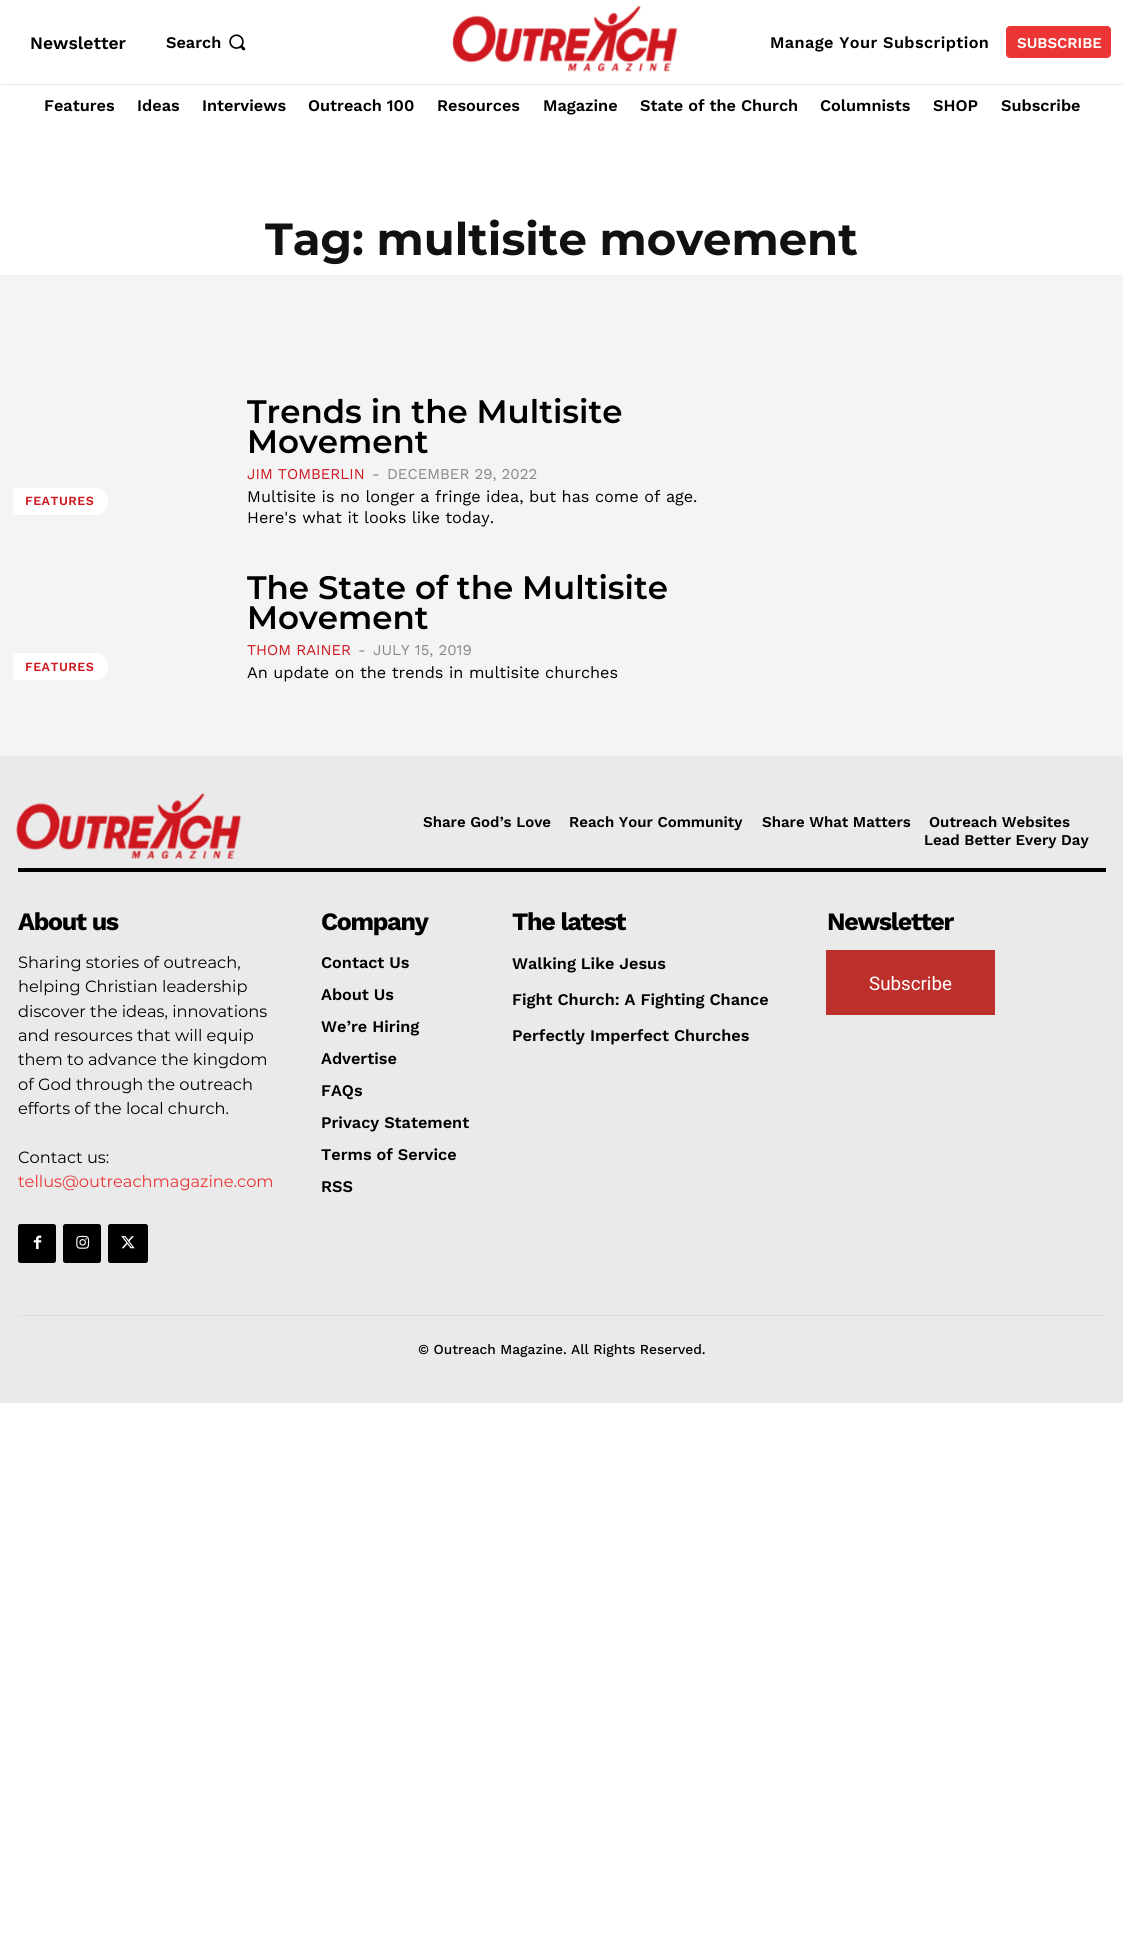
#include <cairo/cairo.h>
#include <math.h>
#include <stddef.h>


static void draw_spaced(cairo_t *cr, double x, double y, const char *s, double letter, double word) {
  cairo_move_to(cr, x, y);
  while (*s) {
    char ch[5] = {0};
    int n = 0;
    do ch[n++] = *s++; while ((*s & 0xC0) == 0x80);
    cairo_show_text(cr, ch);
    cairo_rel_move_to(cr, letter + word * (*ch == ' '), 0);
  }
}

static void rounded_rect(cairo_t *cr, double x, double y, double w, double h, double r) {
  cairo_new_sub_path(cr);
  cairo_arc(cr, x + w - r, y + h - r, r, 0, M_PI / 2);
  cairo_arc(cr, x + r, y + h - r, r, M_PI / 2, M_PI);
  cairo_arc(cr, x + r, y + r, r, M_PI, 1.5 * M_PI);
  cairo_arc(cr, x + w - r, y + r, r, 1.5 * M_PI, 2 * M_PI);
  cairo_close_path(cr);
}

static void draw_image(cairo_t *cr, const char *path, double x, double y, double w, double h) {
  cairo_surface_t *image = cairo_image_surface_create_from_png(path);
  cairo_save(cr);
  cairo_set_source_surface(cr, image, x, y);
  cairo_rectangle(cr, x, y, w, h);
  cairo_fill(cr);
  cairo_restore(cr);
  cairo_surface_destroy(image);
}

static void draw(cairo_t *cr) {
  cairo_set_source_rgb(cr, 1, 1, 1);
  cairo_paint(cr);
  draw_image(cr, "images/1.png", 229, 34, 17, 17);
  draw_image(cr, "images/2.png", 452, 6, 226, 66);
  cairo_set_source_rgb(cr, 236 / 255.0, 53 / 255.0, 53 / 255.0);
  rounded_rect(cr, 1006, 26, 105, 32, 4);
  cairo_fill(cr);
  cairo_set_source_rgb(cr, 234 / 255.0, 234 / 255.0, 234 / 255.0);
  cairo_rectangle(cr, 1, 84, 1122, 1);
  cairo_fill(cr);
  cairo_set_source_rgb(cr, 244 / 255.0, 244 / 255.0, 244 / 255.0);
  cairo_rectangle(cr, 0, 275, 1123, 481);
  cairo_fill(cr);
  cairo_set_source_rgb(cr, 1, 1, 1);
  cairo_new_path(cr);
  cairo_move_to(cr, 13, 488);
  cairo_line_to(cr, 94.5, 488);
  cairo_curve_to(cr, 102, 488, 108, 494, 108, 501.5);
  cairo_curve_to(cr, 108, 509, 102, 515, 94.5, 515);
  cairo_line_to(cr, 13, 515);
  cairo_close_path(cr);
  cairo_fill(cr);
  cairo_new_path(cr);
  cairo_move_to(cr, 13, 653);
  cairo_line_to(cr, 94.5, 653);
  cairo_curve_to(cr, 102, 653, 108, 659, 108, 666.5);
  cairo_curve_to(cr, 108, 674, 102, 680, 94.5, 680);
  cairo_line_to(cr, 13, 680);
  cairo_close_path(cr);
  cairo_fill(cr);
  cairo_set_source_rgb(cr, 234 / 255.0, 234 / 255.0, 234 / 255.0);
  cairo_rectangle(cr, 0, 756, 1123, 647);
  cairo_fill(cr);
  cairo_set_source_rgb(cr, 0, 0, 0);
  cairo_rectangle(cr, 18, 868, 1088, 4);
  cairo_fill(cr);
  draw_image(cr, "images/3.png", 16, 793, 226, 66);
  rounded_rect(cr, 18, 1224, 38, 39, 2.5);
  cairo_fill(cr);
  draw_image(cr, "images/4.png", 33, 1235, 9, 15);
  rounded_rect(cr, 63, 1224, 38, 39, 2.5);
  cairo_fill(cr);
  draw_image(cr, "images/5.png", 76, 1235, 14, 14);
  rounded_rect(cr, 108, 1224, 40, 39, 2.5);
  cairo_fill(cr);
  draw_image(cr, "images/6.png", 121, 1236, 14, 13);
  cairo_set_source_rgb(cr, 189 / 255.0, 47 / 255.0, 43 / 255.0);
  cairo_rectangle(cr, 826, 950, 169, 65);
  cairo_fill(cr);
  cairo_set_source_rgb(cr, 221 / 255.0, 221 / 255.0, 221 / 255.0);
  cairo_rectangle(cr, 18, 1315, 1088, 1);
  cairo_fill(cr);
  cairo_select_font_face(cr, "Work Sans SemiBold", CAIRO_FONT_SLANT_NORMAL, CAIRO_FONT_WEIGHT_NORMAL);
  cairo_set_font_size(cr, 17.5);
  cairo_set_source_rgb(cr, 0, 0, 0);
  cairo_move_to(cr, 30, 49);
  cairo_show_text(cr, "Newsletter");
  cairo_set_font_size(cr, 16.25);
  cairo_move_to(cr, 166, 48);
  cairo_show_text(cr, "Search");
  draw_spaced(cr, 770, 48, "Manage Your Subscription", 0.4, 0);
  cairo_set_font_size(cr, 15);
  cairo_set_source_rgb(cr, 1, 1, 1);
  cairo_move_to(cr, 1017, 48);
  cairo_show_text(cr, "SUBSCRIBE");
  cairo_set_font_size(cr, 16.25);
  cairo_set_source_rgb(cr, 0, 0, 0);
  cairo_move_to(cr, 44, 111);
  cairo_show_text(cr, "Features");
  cairo_move_to(cr, 137, 111);
  cairo_show_text(cr, "Ideas");
  cairo_move_to(cr, 202, 111);
  cairo_show_text(cr, "Interviews");
  cairo_move_to(cr, 308, 111);
  cairo_show_text(cr, "Outreach 100");
  cairo_move_to(cr, 437, 111);
  cairo_show_text(cr, "Resources");
  cairo_move_to(cr, 543, 111);
  cairo_show_text(cr, "Magazine");
  cairo_move_to(cr, 640, 111);
  cairo_show_text(cr, "State of the Church");
  cairo_move_to(cr, 820, 111);
  cairo_show_text(cr, "Columnists");
  cairo_move_to(cr, 933, 111);
  cairo_show_text(cr, "SHOP");
  cairo_move_to(cr, 1001, 111);
  cairo_show_text(cr, "Subscribe");
  cairo_select_font_face(cr, "Montserrat", CAIRO_FONT_SLANT_NORMAL, CAIRO_FONT_WEIGHT_BOLD);
  cairo_set_font_size(cr, 45);
  cairo_set_source_rgb(cr, 17 / 255.0, 17 / 255.0, 17 / 255.0);
  cairo_move_to(cr, 265, 255);
  cairo_show_text(cr, "Tag: multisite movement");
  cairo_select_font_face(cr, "Work Sans SemiBold", CAIRO_FONT_SLANT_NORMAL, CAIRO_FONT_WEIGHT_NORMAL);
  cairo_set_font_size(cr, 12.5);
  cairo_set_source_rgb(cr, 206 / 255.0, 23 / 255.0, 30 / 255.0);
  draw_spaced(cr, 25, 505, "FEATURES", 0.5, 0);
  cairo_select_font_face(cr, "Montserrat SemiBold", CAIRO_FONT_SLANT_NORMAL, CAIRO_FONT_WEIGHT_NORMAL);
  cairo_set_font_size(cr, 32.5);
  cairo_set_source_rgb(cr, 0, 0, 0);
  cairo_move_to(cr, 247, 423);
  cairo_show_text(cr, "Trends in the Multisite");
  cairo_move_to(cr, 247, 453);
  cairo_show_text(cr, "Movement");
  cairo_select_font_face(cr, "Work Sans", CAIRO_FONT_SLANT_NORMAL, CAIRO_FONT_WEIGHT_NORMAL);
  cairo_set_font_size(cr, 15);
  cairo_set_source_rgb(cr, 206 / 255.0, 23 / 255.0, 30 / 255.0);
  cairo_move_to(cr, 247, 479);
  cairo_show_text(cr, "JIM TOMBERLIN");
  cairo_set_source_rgb(cr, 136 / 255.0, 136 / 255.0, 136 / 255.0);
  cairo_move_to(cr, 372, 479);
  cairo_show_text(cr, "-");
  cairo_move_to(cr, 387, 479);
  cairo_show_text(cr, "DECEMBER 29, 2022");
  cairo_set_font_size(cr, 16.25);
  cairo_set_source_rgb(cr, 0, 0, 0);
  cairo_move_to(cr, 247, 502);
  cairo_show_text(cr, "Multisite is no longer a fringe idea, but has come of age.");
  cairo_move_to(cr, 247, 523);
  cairo_show_text(cr, "Here's what it looks like today.");
  cairo_select_font_face(cr, "Work Sans SemiBold", CAIRO_FONT_SLANT_NORMAL, CAIRO_FONT_WEIGHT_NORMAL);
  cairo_set_font_size(cr, 12.5);
  cairo_set_source_rgb(cr, 206 / 255.0, 23 / 255.0, 30 / 255.0);
  draw_spaced(cr, 25, 671, "FEATURES", 0.5, 0);
  cairo_select_font_face(cr, "Montserrat SemiBold", CAIRO_FONT_SLANT_NORMAL, CAIRO_FONT_WEIGHT_NORMAL);
  cairo_set_font_size(cr, 32.5);
  cairo_set_source_rgb(cr, 0, 0, 0);
  cairo_move_to(cr, 247, 599);
  cairo_show_text(cr, "The State of the Multisite");
  cairo_move_to(cr, 247, 629);
  cairo_show_text(cr, "Movement");
  cairo_select_font_face(cr, "Work Sans", CAIRO_FONT_SLANT_NORMAL, CAIRO_FONT_WEIGHT_NORMAL);
  cairo_set_font_size(cr, 15);
  cairo_set_source_rgb(cr, 206 / 255.0, 23 / 255.0, 30 / 255.0);
  cairo_move_to(cr, 247, 655);
  cairo_show_text(cr, "THOM RAINER");
  cairo_set_source_rgb(cr, 136 / 255.0, 136 / 255.0, 136 / 255.0);
  cairo_move_to(cr, 358, 655);
  cairo_show_text(cr, "-");
  cairo_move_to(cr, 373, 655);
  cairo_show_text(cr, "JULY 15, 2019");
  cairo_set_font_size(cr, 16.25);
  cairo_set_source_rgb(cr, 0, 0, 0);
  cairo_move_to(cr, 247, 678);
  cairo_show_text(cr, "An update on the trends in multisite churches");
  cairo_select_font_face(cr, "Work Sans SemiBold", CAIRO_FONT_SLANT_NORMAL, CAIRO_FONT_WEIGHT_NORMAL);
  cairo_set_font_size(cr, 15);
  cairo_move_to(cr, 423, 827);
  cairo_show_text(cr, "Share God’s Love");
  cairo_move_to(cr, 569, 827);
  cairo_show_text(cr, "Reach Your Community");
  cairo_move_to(cr, 762, 827);
  cairo_show_text(cr, "Share What Matters");
  cairo_move_to(cr, 929, 827);
  cairo_show_text(cr, "Outreach Websites");
  cairo_move_to(cr, 924, 845);
  cairo_show_text(cr, "Lead Better Every Day");
  cairo_select_font_face(cr, "Work Sans", CAIRO_FONT_SLANT_NORMAL, CAIRO_FONT_WEIGHT_BOLD);
  cairo_set_font_size(cr, 25);
  draw_spaced(cr, 18, 930, "About us", -1.25, 0);
  cairo_select_font_face(cr, "Montserrat", CAIRO_FONT_SLANT_NORMAL, CAIRO_FONT_WEIGHT_NORMAL);
  cairo_set_font_size(cr, 16.25);
  cairo_move_to(cr, 18, 968);
  cairo_show_text(cr, "Sharing stories of outreach,");
  cairo_move_to(cr, 18, 992);
  cairo_show_text(cr, "helping Christian leadership");
  cairo_move_to(cr, 18, 1017);
  cairo_show_text(cr, "discover the ideas, innovations");
  cairo_move_to(cr, 18, 1041);
  cairo_show_text(cr, "and resources that will equip");
  cairo_move_to(cr, 18, 1065);
  cairo_show_text(cr, "them to advance the kingdom");
  cairo_move_to(cr, 18, 1090);
  cairo_show_text(cr, "of God through the outreach");
  cairo_move_to(cr, 18, 1114);
  cairo_show_text(cr, "efforts of the local church.");
  cairo_move_to(cr, 18, 1163);
  cairo_show_text(cr, "Contact us:");
  cairo_set_source_rgb(cr, 236 / 255.0, 53 / 255.0, 53 / 255.0);
  cairo_move_to(cr, 18, 1187);
  cairo_show_text(cr, "tellus@outreachmagazine.com");
  cairo_select_font_face(cr, "Work Sans", CAIRO_FONT_SLANT_NORMAL, CAIRO_FONT_WEIGHT_BOLD);
  cairo_set_font_size(cr, 25);
  cairo_set_source_rgb(cr, 0, 0, 0);
  draw_spaced(cr, 321, 930, "Company", -1.25, 0);
  cairo_select_font_face(cr, "Work Sans SemiBold", CAIRO_FONT_SLANT_NORMAL, CAIRO_FONT_WEIGHT_NORMAL);
  cairo_set_font_size(cr, 16.25);
  cairo_move_to(cr, 321, 968);
  cairo_show_text(cr, "Contact Us");
  cairo_move_to(cr, 321, 1000);
  cairo_show_text(cr, "About Us");
  cairo_move_to(cr, 321, 1032);
  cairo_show_text(cr, "We’re Hiring");
  cairo_move_to(cr, 321, 1064);
  cairo_show_text(cr, "Advertise");
  cairo_move_to(cr, 321, 1096);
  cairo_show_text(cr, "FAQs");
  cairo_move_to(cr, 321, 1128);
  cairo_show_text(cr, "Privacy Statement");
  cairo_move_to(cr, 321, 1160);
  cairo_show_text(cr, "Terms of Service");
  cairo_move_to(cr, 321, 1192);
  cairo_show_text(cr, "RSS");
  cairo_select_font_face(cr, "Work Sans", CAIRO_FONT_SLANT_NORMAL, CAIRO_FONT_WEIGHT_BOLD);
  cairo_set_font_size(cr, 25);
  draw_spaced(cr, 512, 930, "The latest", -1.25, 0);
  cairo_select_font_face(cr, "Work Sans SemiBold", CAIRO_FONT_SLANT_NORMAL, CAIRO_FONT_WEIGHT_NORMAL);
  cairo_set_font_size(cr, 16.25);
  cairo_move_to(cr, 512, 969);
  cairo_show_text(cr, "Walking Like Jesus");
  cairo_move_to(cr, 512, 1005);
  cairo_show_text(cr, "Fight Church: A Fighting Chance");
  cairo_move_to(cr, 512, 1041);
  cairo_show_text(cr, "Perfectly Imperfect Churches");
  cairo_select_font_face(cr, "Work Sans", CAIRO_FONT_SLANT_NORMAL, CAIRO_FONT_WEIGHT_BOLD);
  cairo_set_font_size(cr, 25);
  draw_spaced(cr, 827, 930, "Newsletter", -1.25, 0);
  cairo_select_font_face(cr, "Roboto", CAIRO_FONT_SLANT_NORMAL, CAIRO_FONT_WEIGHT_NORMAL);
  cairo_set_font_size(cr, 18.75);
  cairo_set_source_rgb(cr, 1, 1, 1);
  cairo_move_to(cr, 869, 990);
  cairo_show_text(cr, "Subscribe");
  cairo_select_font_face(cr, "Work Sans Medium", CAIRO_FONT_SLANT_NORMAL, CAIRO_FONT_WEIGHT_NORMAL);
  cairo_set_font_size(cr, 13.75);
  cairo_set_source_rgb(cr, 0, 0, 0);
  cairo_move_to(cr, 418, 1354);
  cairo_show_text(cr, "© Outreach Magazine. All Rights Reserved.");
}

int main(void) {
  cairo_surface_t *surface = cairo_image_surface_create(CAIRO_FORMAT_RGB24, 1123, 1933);
  cairo_t *cr = cairo_create(surface);
  cairo_font_options_t *options = cairo_font_options_create();
  cairo_font_options_set_hint_metrics(options, CAIRO_HINT_METRICS_OFF);
  cairo_font_options_set_hint_style(options, CAIRO_HINT_STYLE_NONE);
  cairo_set_font_options(cr, options);
  cairo_set_miter_limit(cr, 4);
  draw(cr);
  cairo_surface_write_to_png(surface, "out.png");
  cairo_font_options_destroy(options);
  cairo_destroy(cr);
  cairo_surface_destroy(surface);
  return 0;
}
